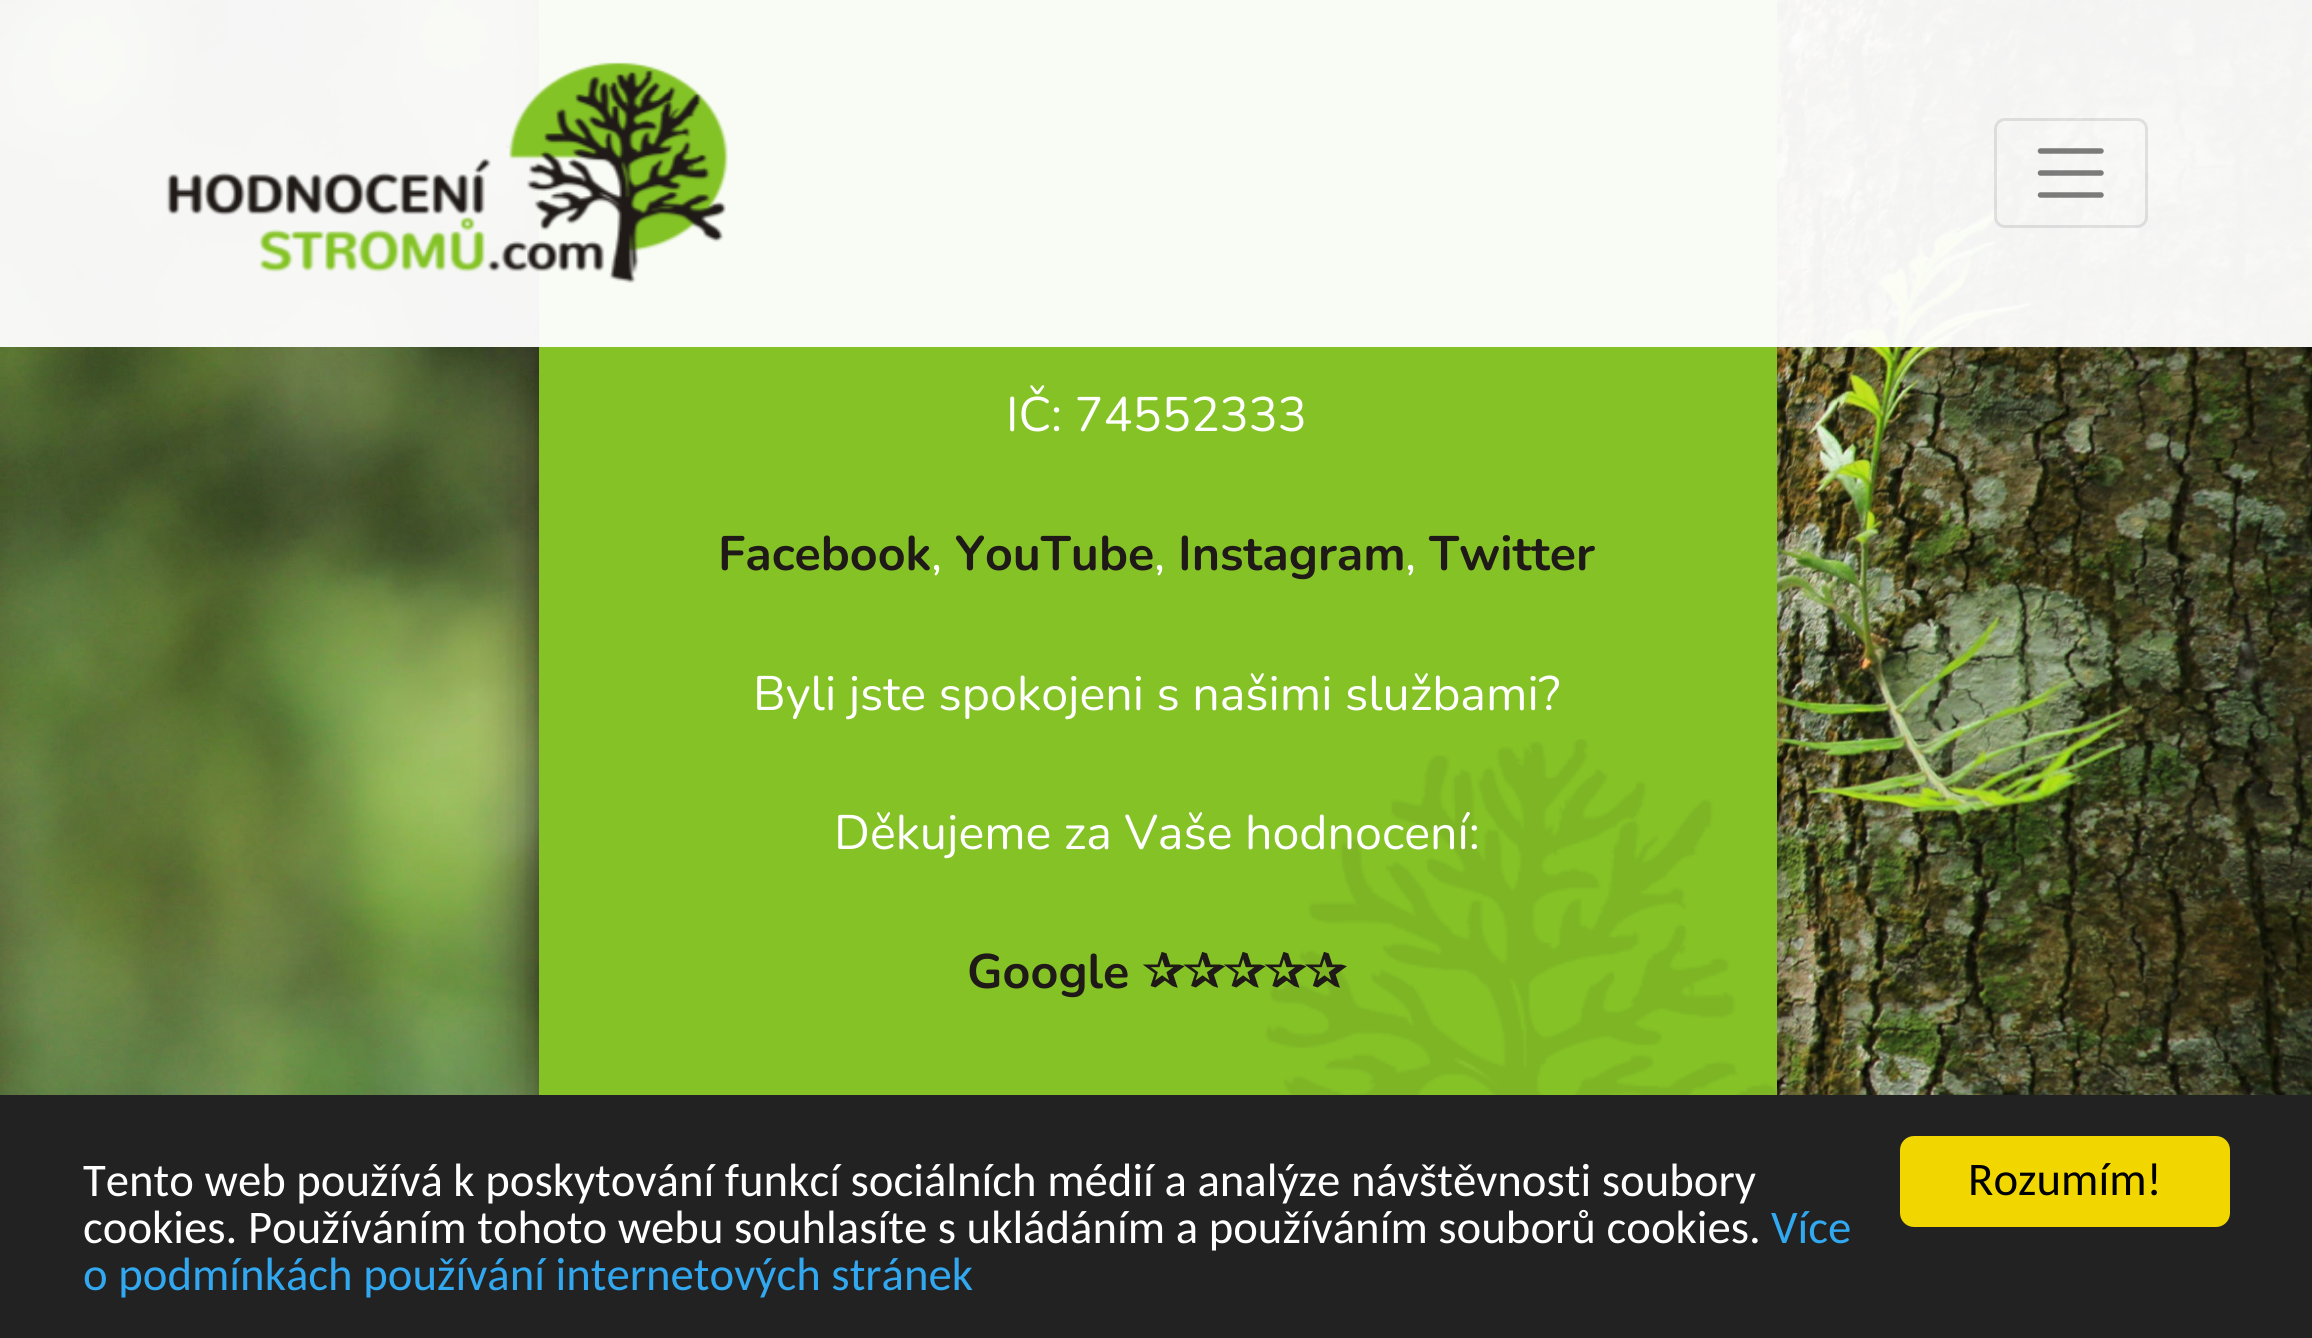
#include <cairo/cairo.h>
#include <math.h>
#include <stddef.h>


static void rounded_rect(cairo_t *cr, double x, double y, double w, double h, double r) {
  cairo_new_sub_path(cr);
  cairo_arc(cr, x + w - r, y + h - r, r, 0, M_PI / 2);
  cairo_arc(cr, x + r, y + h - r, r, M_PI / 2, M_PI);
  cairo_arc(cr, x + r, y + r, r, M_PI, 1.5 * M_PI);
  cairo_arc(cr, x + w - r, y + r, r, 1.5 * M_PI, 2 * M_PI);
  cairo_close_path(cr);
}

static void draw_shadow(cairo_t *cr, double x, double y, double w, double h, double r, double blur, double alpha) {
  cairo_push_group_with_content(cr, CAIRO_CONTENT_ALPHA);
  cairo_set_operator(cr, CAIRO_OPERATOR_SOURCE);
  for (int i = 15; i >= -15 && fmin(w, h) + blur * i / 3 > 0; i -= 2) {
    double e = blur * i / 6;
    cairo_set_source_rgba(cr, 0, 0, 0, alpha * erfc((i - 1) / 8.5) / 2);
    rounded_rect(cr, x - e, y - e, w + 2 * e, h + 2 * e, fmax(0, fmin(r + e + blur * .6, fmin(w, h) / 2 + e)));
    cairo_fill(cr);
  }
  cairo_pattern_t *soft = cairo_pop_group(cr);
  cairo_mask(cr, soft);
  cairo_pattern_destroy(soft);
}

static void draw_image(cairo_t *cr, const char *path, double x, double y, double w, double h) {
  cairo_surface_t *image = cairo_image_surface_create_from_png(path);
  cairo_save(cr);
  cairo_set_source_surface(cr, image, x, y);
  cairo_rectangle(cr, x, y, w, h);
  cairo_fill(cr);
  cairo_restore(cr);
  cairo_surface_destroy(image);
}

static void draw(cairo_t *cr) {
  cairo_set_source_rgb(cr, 1, 1, 1);
  cairo_paint(cr);
  draw_image(cr, "images/1.png", 0, 0, 2312, 1095);
  cairo_set_source_rgb(cr, 0, 0, 0);
  draw_shadow(cr, 539, -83, 1238, 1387, 0, 27.5, 0.19);
  draw_shadow(cr, 539, -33, 1238, 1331, 0, 11, 0.2);
  cairo_set_source_rgb(cr, 133 / 255.0, 194 / 255.0, 38 / 255.0);
  cairo_rectangle(cr, 539, 0, 1238, 1095);
  cairo_fill(cr);
  cairo_set_source_rgba(cr, 1, 1, 1, 0.95);
  cairo_rectangle(cr, 0, 0, 2312, 347);
  cairo_fill(cr);
  draw_image(cr, "images/2.png", 166, 62, 562, 221);
  rounded_rect(cr, 1995.5, 119.5, 151, 107, 9.5);
  cairo_set_source_rgba(cr, 0, 0, 0, 0.1);
  cairo_set_line_width(cr, 3);
  cairo_stroke(cr);
  cairo_new_path(cr);
  cairo_move_to(cr, 2040.5, 151);
  cairo_line_to(cr, 2101, 151);
  cairo_move_to(cr, 2040.5, 173);
  cairo_line_to(cr, 2101, 173);
  cairo_move_to(cr, 2040.5, 195);
  cairo_line_to(cr, 2101, 195);
  cairo_set_source_rgba(cr, 0, 0, 0, 0.5);
  cairo_set_line_width(cr, 5.5);
  cairo_set_line_cap(cr, CAIRO_LINE_CAP_ROUND);
  cairo_stroke(cr);
  draw_image(cr, "images/3.png", 1265, 739, 512, 356);
  cairo_set_source_rgb(cr, 34 / 255.0, 34 / 255.0, 34 / 255.0);
  cairo_rectangle(cr, 0, 1095, 2312, 243);
  cairo_fill(cr);
  cairo_set_source_rgb(cr, 241 / 255.0, 214 / 255.0, 0);
  rounded_rect(cr, 1900, 1136, 330, 91, 14);
  cairo_fill(cr);
  cairo_select_font_face(cr, "Nunito", CAIRO_FONT_SLANT_NORMAL, CAIRO_FONT_WEIGHT_NORMAL);
  cairo_set_font_size(cr, 48.4);
  cairo_set_source_rgb(cr, 1, 1, 1);
  cairo_move_to(cr, 1006, 431);
  cairo_show_text(cr, "IČ: 74552333");
  cairo_select_font_face(cr, "Nunito", CAIRO_FONT_SLANT_NORMAL, CAIRO_FONT_WEIGHT_BOLD);
  cairo_set_source_rgb(cr, 31 / 255.0, 26 / 255.0, 23 / 255.0);
  cairo_move_to(cr, 718, 570);
  cairo_show_text(cr, "Facebook");
  cairo_select_font_face(cr, "Nunito", CAIRO_FONT_SLANT_NORMAL, CAIRO_FONT_WEIGHT_NORMAL);
  cairo_set_source_rgb(cr, 1, 1, 1);
  cairo_move_to(cr, 931, 570);
  cairo_show_text(cr, ",");
  cairo_select_font_face(cr, "Nunito", CAIRO_FONT_SLANT_NORMAL, CAIRO_FONT_WEIGHT_BOLD);
  cairo_set_source_rgb(cr, 31 / 255.0, 26 / 255.0, 23 / 255.0);
  cairo_move_to(cr, 955, 570);
  cairo_show_text(cr, "YouTube");
  cairo_select_font_face(cr, "Nunito", CAIRO_FONT_SLANT_NORMAL, CAIRO_FONT_WEIGHT_NORMAL);
  cairo_set_source_rgb(cr, 1, 1, 1);
  cairo_move_to(cr, 1154, 570);
  cairo_show_text(cr, ",");
  cairo_select_font_face(cr, "Nunito", CAIRO_FONT_SLANT_NORMAL, CAIRO_FONT_WEIGHT_BOLD);
  cairo_set_source_rgb(cr, 31 / 255.0, 26 / 255.0, 23 / 255.0);
  cairo_move_to(cr, 1178, 570);
  cairo_show_text(cr, "Instagram");
  cairo_select_font_face(cr, "Nunito", CAIRO_FONT_SLANT_NORMAL, CAIRO_FONT_WEIGHT_NORMAL);
  cairo_set_source_rgb(cr, 1, 1, 1);
  cairo_move_to(cr, 1405, 570);
  cairo_show_text(cr, ",");
  cairo_select_font_face(cr, "Nunito", CAIRO_FONT_SLANT_NORMAL, CAIRO_FONT_WEIGHT_BOLD);
  cairo_set_source_rgb(cr, 31 / 255.0, 26 / 255.0, 23 / 255.0);
  cairo_move_to(cr, 1429, 570);
  cairo_show_text(cr, "Twitter");
  cairo_select_font_face(cr, "Nunito", CAIRO_FONT_SLANT_NORMAL, CAIRO_FONT_WEIGHT_NORMAL);
  cairo_set_source_rgb(cr, 1, 1, 1);
  cairo_move_to(cr, 753, 710);
  cairo_show_text(cr, "Byli jste spokojeni s našimi službami?");
  cairo_move_to(cr, 834, 849);
  cairo_show_text(cr, "Děkujeme za Vaše hodnocení:");
  cairo_select_font_face(cr, "Nunito", CAIRO_FONT_SLANT_NORMAL, CAIRO_FONT_WEIGHT_BOLD);
  cairo_set_source_rgb(cr, 31 / 255.0, 26 / 255.0, 23 / 255.0);
  cairo_move_to(cr, 967, 988);
  cairo_show_text(cr, "Google");
  cairo_select_font_face(cr, "DejaVu Sans", CAIRO_FONT_SLANT_NORMAL, CAIRO_FONT_WEIGHT_BOLD);
  cairo_move_to(cr, 1143, 988);
  cairo_show_text(cr, "✰✰✰✰✰");
  cairo_select_font_face(cr, "Carlito", CAIRO_FONT_SLANT_NORMAL, CAIRO_FONT_WEIGHT_NORMAL);
  cairo_set_font_size(cr, 46.75);
  cairo_set_source_rgb(cr, 1, 1, 1);
  cairo_move_to(cr, 83, 1196);
  cairo_show_text(cr, "Tento web používá k poskytování funkcí sociálních médií a analýze návštěvnosti soubory");
  cairo_move_to(cr, 83, 1243);
  cairo_show_text(cr, "cookies. Používáním tohoto webu souhlasíte s ukládáním a používáním souborů cookies.");
  cairo_set_source_rgb(cr, 49 / 255.0, 168 / 255.0, 240 / 255.0);
  cairo_move_to(cr, 1771, 1243);
  cairo_show_text(cr, "Více");
  cairo_move_to(cr, 83, 1290);
  cairo_show_text(cr, "o podmínkách používání internetových stránek");
  cairo_set_source_rgb(cr, 0, 0, 0);
  cairo_move_to(cr, 1968, 1195);
  cairo_show_text(cr, "Rozumím!");
}

int main(void) {
  cairo_surface_t *surface = cairo_image_surface_create(CAIRO_FORMAT_RGB24, 2312, 1338);
  cairo_t *cr = cairo_create(surface);
  cairo_font_options_t *options = cairo_font_options_create();
  cairo_font_options_set_hint_metrics(options, CAIRO_HINT_METRICS_OFF);
  cairo_font_options_set_hint_style(options, CAIRO_HINT_STYLE_NONE);
  cairo_set_font_options(cr, options);
  cairo_set_miter_limit(cr, 4);
  draw(cr);
  cairo_surface_write_to_png(surface, "out.png");
  cairo_font_options_destroy(options);
  cairo_destroy(cr);
  cairo_surface_destroy(surface);
  return 0;
}
